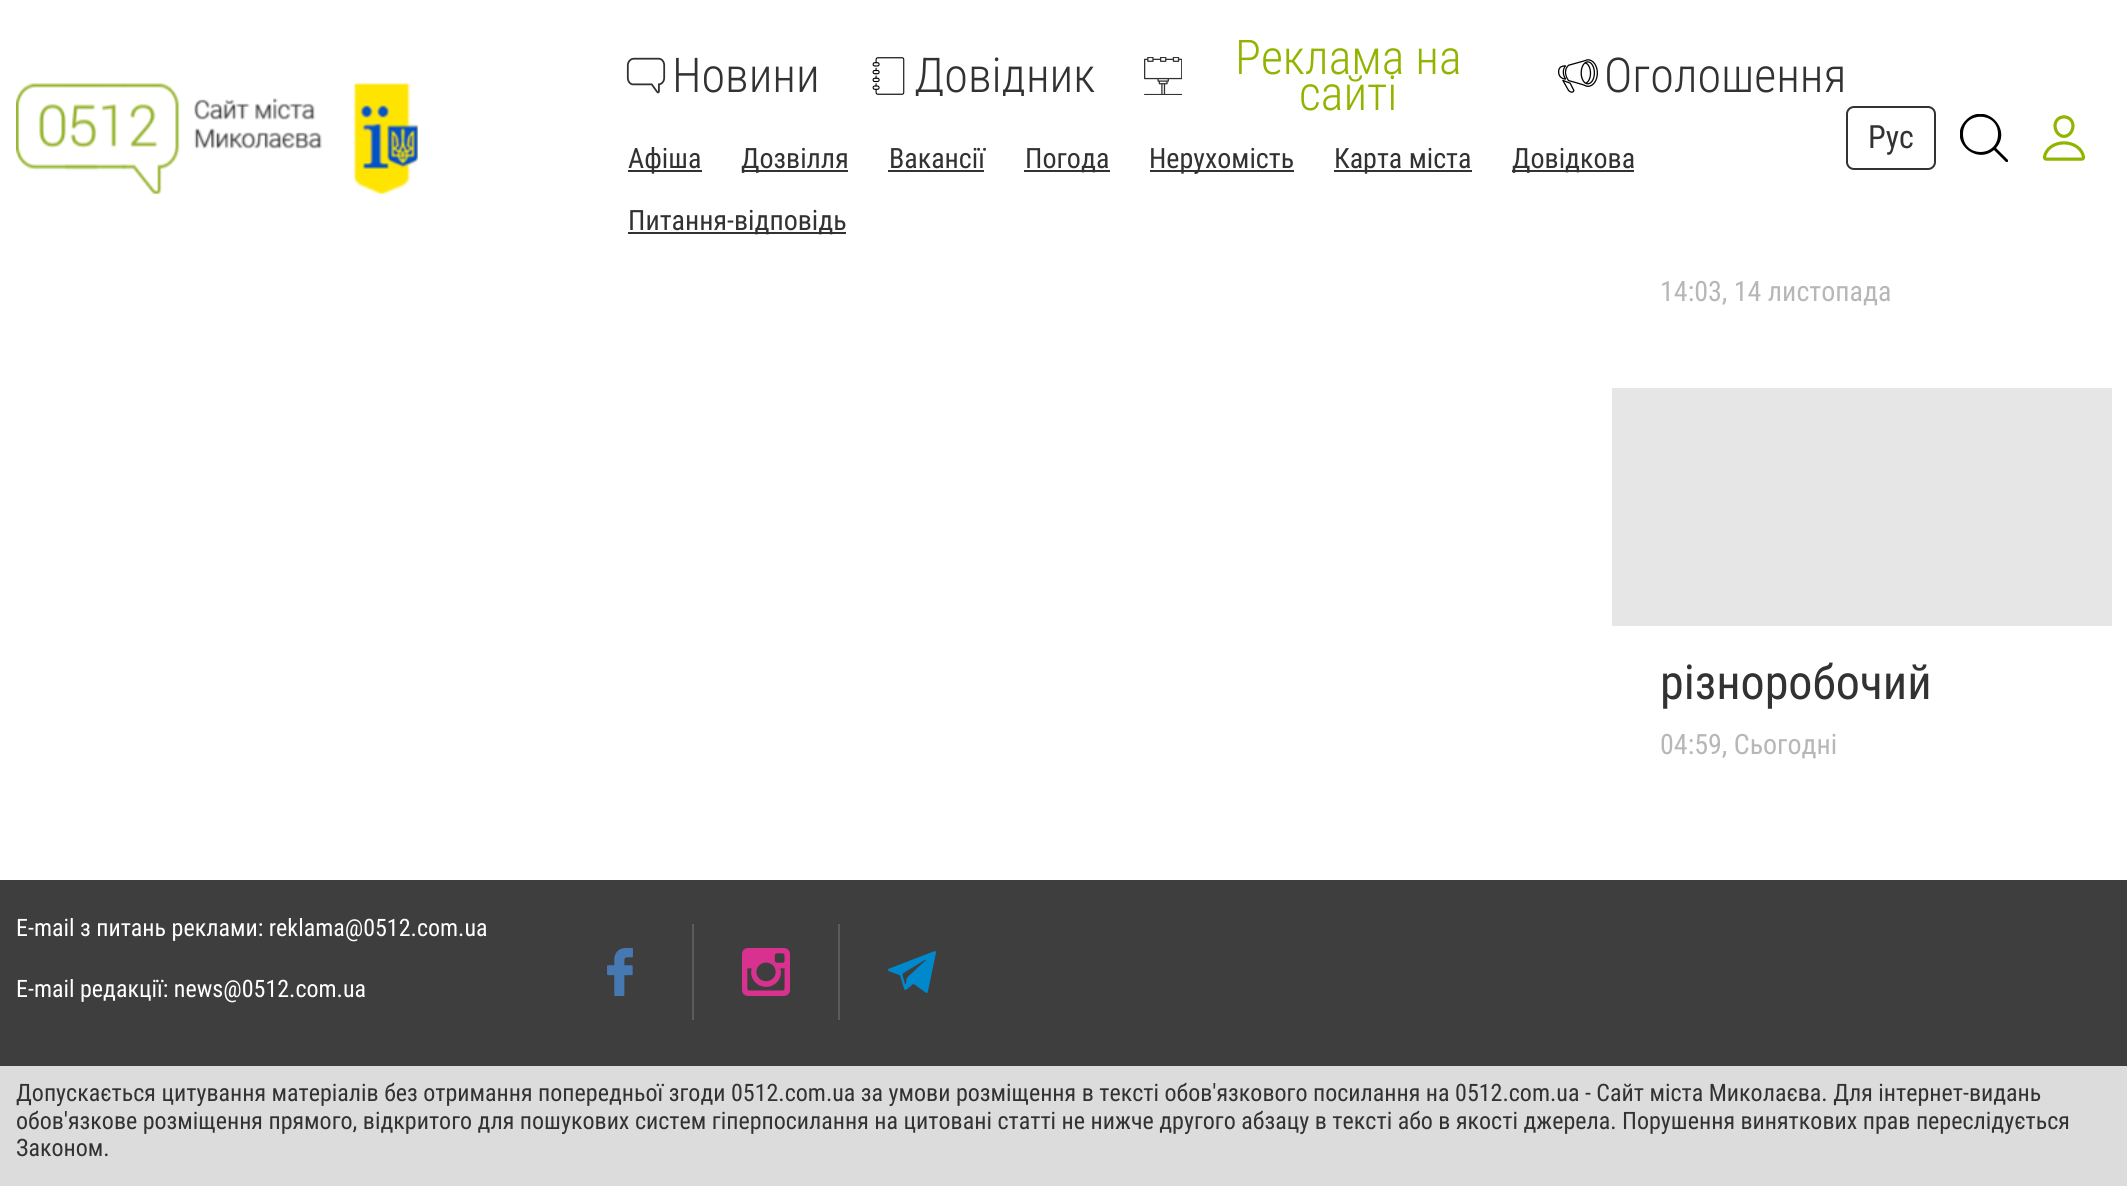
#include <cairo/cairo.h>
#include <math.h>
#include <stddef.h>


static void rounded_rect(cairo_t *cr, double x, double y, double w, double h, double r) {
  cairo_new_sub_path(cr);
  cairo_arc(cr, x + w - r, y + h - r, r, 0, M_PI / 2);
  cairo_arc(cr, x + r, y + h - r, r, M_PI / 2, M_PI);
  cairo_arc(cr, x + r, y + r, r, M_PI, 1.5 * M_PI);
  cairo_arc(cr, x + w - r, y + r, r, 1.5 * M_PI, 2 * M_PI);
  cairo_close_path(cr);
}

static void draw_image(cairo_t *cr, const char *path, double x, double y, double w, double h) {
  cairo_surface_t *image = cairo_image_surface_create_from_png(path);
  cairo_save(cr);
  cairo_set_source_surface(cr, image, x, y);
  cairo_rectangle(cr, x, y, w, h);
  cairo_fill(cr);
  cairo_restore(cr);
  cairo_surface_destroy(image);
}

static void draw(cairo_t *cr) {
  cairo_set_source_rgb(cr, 1, 1, 1);
  cairo_paint(cr);
  draw_image(cr, "images/1.png", 16, 83, 402, 111);
  draw_image(cr, "images/2.png", 626, 57, 40, 37);
  draw_image(cr, "images/3.png", 872, 57, 33, 38);
  draw_image(cr, "images/4.png", 1144, 57, 38, 38);
  draw_image(cr, "images/5.png", 1558, 59, 40, 34);
  cairo_set_source_rgb(cr, 50 / 255.0, 50 / 255.0, 50 / 255.0);
  cairo_rectangle(cr, 628, 170, 74, 2);
  cairo_fill(cr);
  cairo_rectangle(cr, 742, 170, 106, 2);
  cairo_fill(cr);
  cairo_rectangle(cr, 888, 170, 96, 2);
  cairo_fill(cr);
  cairo_rectangle(cr, 1024, 170, 86, 2);
  cairo_fill(cr);
  cairo_rectangle(cr, 1150, 170, 144, 2);
  cairo_fill(cr);
  cairo_rectangle(cr, 1334, 170, 138, 2);
  cairo_fill(cr);
  cairo_rectangle(cr, 1512, 170, 122, 2);
  cairo_fill(cr);
  cairo_rectangle(cr, 628, 232, 218, 2);
  cairo_fill(cr);
  rounded_rect(cr, 1847, 107, 88, 62, 7);
  cairo_stroke(cr);
  cairo_save(cr);
  cairo_rectangle(cr, 1960, 114, 48, 48);
  cairo_clip(cr);
  cairo_set_source_rgb(cr, 0, 0, 0);
  cairo_new_path(cr);
  cairo_move_to(cr, 2008, 160);
  cairo_line_to(cr, 1996, 148);
  cairo_curve_to(cr, 2013, 129, 1985, 101, 1966, 120);
  cairo_curve_to(cr, 1947, 139, 1975, 166, 1994, 150);
  cairo_line_to(cr, 2006, 162);
  cairo_curve_to(cr, 2007, 163, 2009, 161, 2008, 160);
  cairo_close_path(cr);
  cairo_move_to(cr, 1963, 134);
  cairo_curve_to(cr, 1963, 111, 1998, 111, 1998, 134);
  cairo_curve_to(cr, 1998, 158, 1963, 158, 1963, 134);
  cairo_close_path(cr);
  cairo_fill(cr);
  cairo_restore(cr);
  draw_image(cr, "images/6.png", 2042, 115, 44, 46);
  cairo_set_source_rgb(cr, 230 / 255.0, 230 / 255.0, 230 / 255.0);
  cairo_rectangle(cr, 1612, 388, 500, 238);
  cairo_fill(cr);
  cairo_set_source_rgb(cr, 63 / 255.0, 62 / 255.0, 62 / 255.0);
  cairo_rectangle(cr, 0, 880, 2127, 186);
  cairo_fill(cr);
  cairo_set_source_rgb(cr, 92 / 255.0, 91 / 255.0, 91 / 255.0);
  cairo_rectangle(cr, 692, 924, 2, 96);
  cairo_fill(cr);
  draw_image(cr, "images/7.png", 607, 948, 26, 48);
  cairo_rectangle(cr, 838, 924, 2, 96);
  cairo_fill(cr);
  draw_image(cr, "images/8.png", 742, 948, 48, 48);
  draw_image(cr, "images/9.png", 888, 951, 48, 42);
  cairo_set_source_rgb(cr, 220 / 255.0, 220 / 255.0, 220 / 255.0);
  cairo_rectangle(cr, 0, 1066, 2127, 120);
  cairo_fill(cr);
  cairo_select_font_face(cr, "Roboto Condensed Light", CAIRO_FONT_SLANT_NORMAL, CAIRO_FONT_WEIGHT_NORMAL);
  cairo_set_font_size(cr, 48);
  cairo_set_source_rgb(cr, 50 / 255.0, 50 / 255.0, 50 / 255.0);
  cairo_move_to(cr, 672, 92);
  cairo_show_text(cr, "Новини");
  cairo_save(cr);
  cairo_rectangle(cr, 868, 56, 228, 40);
  cairo_clip(cr);
  cairo_move_to(cr, 914, 92);
  cairo_show_text(cr, "Довідник");
  cairo_restore(cr);
  cairo_save(cr);
  cairo_rectangle(cr, 1144, 40, 366, 72);
  cairo_clip(cr);
  cairo_set_source_rgb(cr, 144 / 255.0, 180 / 255.0, 0);
  cairo_move_to(cr, 1235, 74);
  cairo_show_text(cr, "Реклама на");
  cairo_restore(cr);
  cairo_set_source_rgb(cr, 144 / 255.0, 180 / 255.0, 0);
  cairo_move_to(cr, 1299, 110);
  cairo_show_text(cr, "сайті");
  cairo_set_source_rgb(cr, 50 / 255.0, 50 / 255.0, 50 / 255.0);
  cairo_move_to(cr, 1604, 92);
  cairo_show_text(cr, "Оголошення");
  cairo_select_font_face(cr, "Roboto Condensed", CAIRO_FONT_SLANT_NORMAL, CAIRO_FONT_WEIGHT_NORMAL);
  cairo_set_font_size(cr, 28);
  cairo_move_to(cr, 628, 168);
  cairo_show_text(cr, "Афіша");
  cairo_move_to(cr, 741, 168);
  cairo_show_text(cr, "Дозвілля");
  cairo_move_to(cr, 889, 168);
  cairo_show_text(cr, "Вакансії");
  cairo_move_to(cr, 1025, 168);
  cairo_show_text(cr, "Погода");
  cairo_move_to(cr, 1149, 168);
  cairo_show_text(cr, "Нерухомість");
  cairo_move_to(cr, 1334, 168);
  cairo_show_text(cr, "Карта міста");
  cairo_move_to(cr, 1512, 168);
  cairo_show_text(cr, "Довідкова");
  cairo_move_to(cr, 628, 230);
  cairo_show_text(cr, "Питання-відповідь");
  cairo_set_font_size(cr, 32);
  cairo_move_to(cr, 1868, 148);
  cairo_show_text(cr, "Рус");
  cairo_set_font_size(cr, 28);
  cairo_set_source_rgb(cr, 183 / 255.0, 183 / 255.0, 183 / 255.0);
  cairo_move_to(cr, 1660, 301);
  cairo_show_text(cr, "14:03, 14 листопада");
  cairo_set_font_size(cr, 48);
  cairo_set_source_rgb(cr, 50 / 255.0, 50 / 255.0, 50 / 255.0);
  cairo_move_to(cr, 1660, 699);
  cairo_show_text(cr, "різноробочий");
  cairo_set_font_size(cr, 28);
  cairo_set_source_rgb(cr, 183 / 255.0, 183 / 255.0, 183 / 255.0);
  cairo_move_to(cr, 1660, 754);
  cairo_show_text(cr, "04:59, Сьогодні");
  cairo_set_font_size(cr, 24);
  cairo_set_source_rgb(cr, 1, 1, 1);
  cairo_move_to(cr, 16, 936);
  cairo_show_text(cr, "E-mail з питань реклами: reklama@0512.com.ua");
  cairo_move_to(cr, 16, 997);
  cairo_show_text(cr, "E-mail редакції: news@0512.com.ua");
  cairo_set_source_rgb(cr, 50 / 255.0, 50 / 255.0, 50 / 255.0);
  cairo_move_to(cr, 16, 1101);
  cairo_show_text(cr, "Допускається цитування матеріалів без отримання попередньої згоди 0512.com.ua за умови розміщення в тексті обов'язкового посилання на 0512.com.ua - Сайт міста Миколаєва. Для інтернет-видань");
  cairo_move_to(cr, 16, 1129);
  cairo_show_text(cr, "обов'язкове розміщення прямого, відкритого для пошукових систем гіперпосилання на цитовані статті не нижче другого абзацу в тексті або в якості джерела. Порушення виняткових прав переслідується");
  cairo_move_to(cr, 16, 1156);
  cairo_show_text(cr, "Законом.");
}

int main(void) {
  cairo_surface_t *surface = cairo_image_surface_create(CAIRO_FORMAT_RGB24, 2127, 1186);
  cairo_t *cr = cairo_create(surface);
  cairo_font_options_t *options = cairo_font_options_create();
  cairo_font_options_set_hint_metrics(options, CAIRO_HINT_METRICS_OFF);
  cairo_font_options_set_hint_style(options, CAIRO_HINT_STYLE_NONE);
  cairo_set_font_options(cr, options);
  cairo_set_miter_limit(cr, 4);
  draw(cr);
  cairo_surface_write_to_png(surface, "out.png");
  cairo_font_options_destroy(options);
  cairo_destroy(cr);
  cairo_surface_destroy(surface);
  return 0;
}
